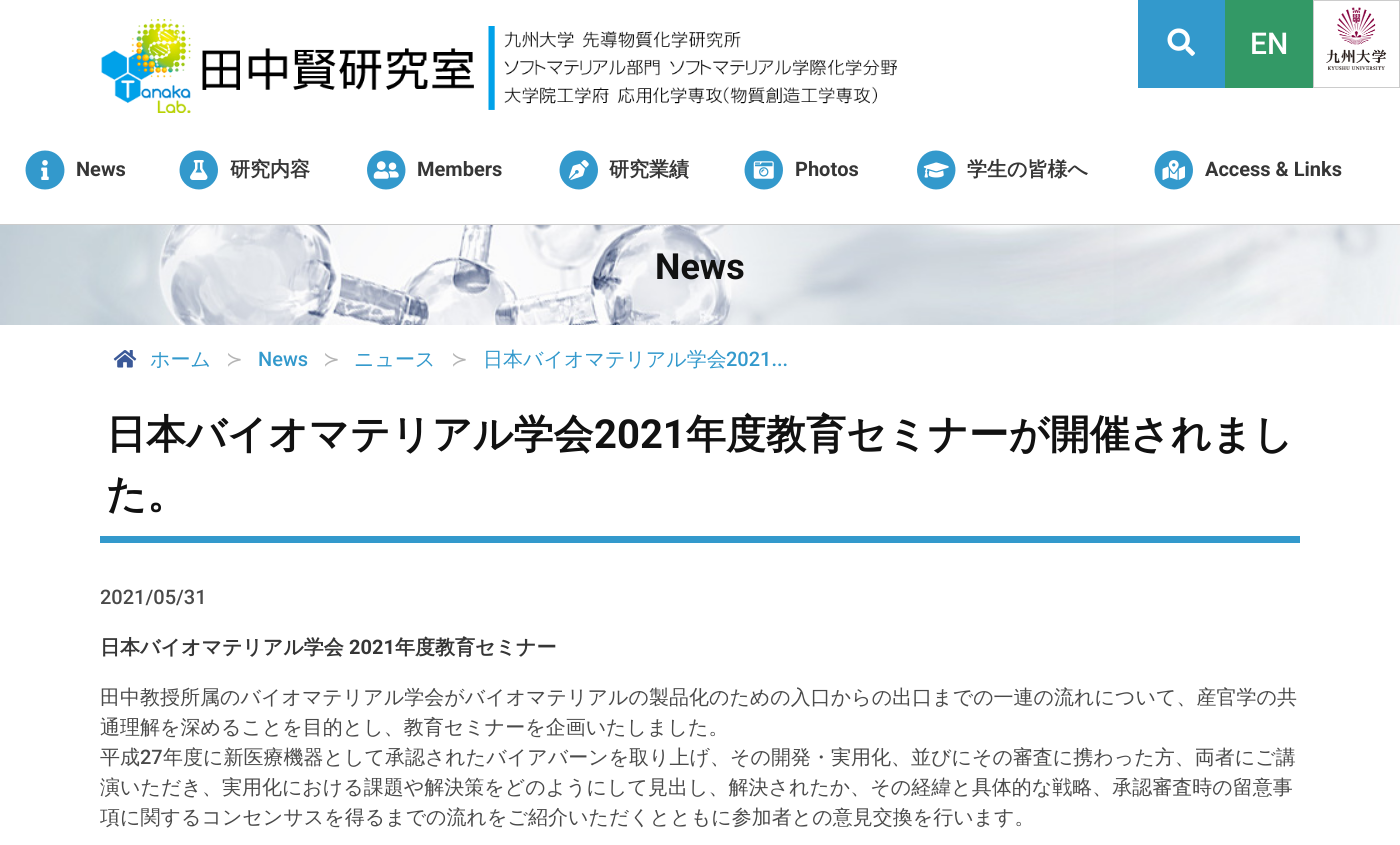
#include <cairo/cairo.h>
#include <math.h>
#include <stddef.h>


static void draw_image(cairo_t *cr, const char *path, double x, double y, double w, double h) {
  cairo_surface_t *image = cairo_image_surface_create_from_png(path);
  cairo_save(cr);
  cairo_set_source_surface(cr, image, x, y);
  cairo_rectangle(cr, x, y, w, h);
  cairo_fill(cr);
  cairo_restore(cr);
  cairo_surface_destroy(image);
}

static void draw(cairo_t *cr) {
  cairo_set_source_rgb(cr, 1, 1, 1);
  cairo_paint(cr);
  draw_image(cr, "images/1.png", 101, 19, 796, 94);
  cairo_set_source_rgb(cr, 51 / 255.0, 153 / 255.0, 204 / 255.0);
  cairo_rectangle(cr, 1138, 0, 87, 88);
  cairo_fill(cr);
  draw_image(cr, "images/2.png", 1167, 28, 28, 28);
  cairo_set_source_rgb(cr, 51 / 255.0, 153 / 255.0, 102 / 255.0);
  cairo_rectangle(cr, 1225, 0, 88, 88);
  cairo_fill(cr);
  cairo_rectangle(cr, 1313.5, 0.5, 86, 87);
  cairo_set_source_rgb(cr, 204 / 255.0, 204 / 255.0, 204 / 255.0);
  cairo_set_line_width(cr, 1);
  cairo_stroke(cr);
  draw_image(cr, "images/3.png", 1326, 7, 61, 63);
  cairo_rectangle(cr, 0, 224, 1400, 1);
  cairo_fill(cr);
  cairo_set_source_rgb(cr, 51 / 255.0, 153 / 255.0, 204 / 255.0);
  cairo_new_path(cr);
  cairo_move_to(cr, 45, 150.5);
  cairo_curve_to(cr, 40.5, 150.5, 36.5, 152, 33, 154.5);
  cairo_curve_to(cr, 18.5, 166, 26.5, 189.5, 45, 189.5);
  cairo_curve_to(cr, 49.5, 189.5, 53.5, 188, 57, 185.5);
  cairo_curve_to(cr, 71.5, 174, 63.5, 150.5, 45, 150.5);
  cairo_close_path(cr);
  cairo_fill(cr);
  draw_image(cr, "images/4.png", 41, 160, 8, 20);
  cairo_new_path(cr);
  cairo_move_to(cr, 199, 150.5);
  cairo_curve_to(cr, 180.5, 150.5, 172.5, 174, 187, 185.5);
  cairo_curve_to(cr, 190.5, 188, 194.5, 189.5, 199, 189.5);
  cairo_curve_to(cr, 203, 189.5, 207, 188, 210.5, 185.5);
  cairo_curve_to(cr, 225, 174, 217, 150.5, 199, 150.5);
  cairo_close_path(cr);
  cairo_fill(cr);
  draw_image(cr, "images/5.png", 190, 160, 18, 20);
  cairo_new_path(cr);
  cairo_move_to(cr, 386, 150.5);
  cairo_curve_to(cr, 382, 150.5, 378, 152, 374.5, 154.5);
  cairo_curve_to(cr, 360, 166, 368, 189.5, 386, 189.5);
  cairo_curve_to(cr, 390.5, 189.5, 394.5, 188, 398, 185.5);
  cairo_curve_to(cr, 412.5, 174, 404.5, 150.5, 386, 150.5);
  cairo_close_path(cr);
  cairo_fill(cr);
  draw_image(cr, "images/6.png", 373, 161, 26, 18);
  cairo_new_path(cr);
  cairo_move_to(cr, 579, 150.5);
  cairo_curve_to(cr, 560.5, 150.5, 552.5, 174, 567, 185.5);
  cairo_curve_to(cr, 570.5, 188, 574.5, 189.5, 579, 189.5);
  cairo_curve_to(cr, 583, 189.5, 587, 188, 590.5, 185.5);
  cairo_curve_to(cr, 605, 174, 597, 150.5, 579, 150.5);
  cairo_close_path(cr);
  cairo_fill(cr);
  draw_image(cr, "images/7.png", 568, 160, 21, 20);
  cairo_new_path(cr);
  cairo_move_to(cr, 764, 150.5);
  cairo_curve_to(cr, 745.5, 150.5, 737.5, 174, 752, 185.5);
  cairo_curve_to(cr, 755.5, 188, 759.5, 189.5, 764, 189.5);
  cairo_curve_to(cr, 782, 189.5, 790, 166, 775.5, 154.5);
  cairo_curve_to(cr, 772, 152, 768, 150.5, 764, 150.5);
  cairo_close_path(cr);
  cairo_fill(cr);
  draw_image(cr, "images/8.png", 753, 161, 21, 18);
  cairo_new_path(cr);
  cairo_move_to(cr, 936, 150.5);
  cairo_curve_to(cr, 918, 150.5, 910, 174, 924.5, 185.5);
  cairo_curve_to(cr, 928, 188, 932, 189.5, 936, 189.5);
  cairo_curve_to(cr, 954.5, 189.5, 962.5, 166, 948, 154.5);
  cairo_curve_to(cr, 944.5, 152, 940.5, 150.5, 936, 150.5);
  cairo_close_path(cr);
  cairo_fill(cr);
  draw_image(cr, "images/9.png", 923, 162, 26, 16);
  cairo_new_path(cr);
  cairo_move_to(cr, 1174, 150.5);
  cairo_curve_to(cr, 1155.5, 150.5, 1147.5, 174, 1162, 185.5);
  cairo_curve_to(cr, 1165.5, 188, 1169.5, 189.5, 1174, 189.5);
  cairo_curve_to(cr, 1178, 189.5, 1182, 188, 1185.5, 185.5);
  cairo_curve_to(cr, 1200, 174, 1192, 150.5, 1174, 150.5);
  cairo_close_path(cr);
  cairo_fill(cr);
  draw_image(cr, "images/10.png", 1162, 160, 23, 20);
  draw_image(cr, "images/11.png", 0, 225, 1400, 100);
  draw_image(cr, "images/12.png", 113, 350, 24, 18);
  cairo_rectangle(cr, 100, 536, 1200, 7);
  cairo_fill(cr);
  cairo_select_font_face(cr, "Roboto Medium", CAIRO_FONT_SLANT_NORMAL, CAIRO_FONT_WEIGHT_NORMAL);
  cairo_set_font_size(cr, 30);
  cairo_set_source_rgb(cr, 1, 1, 1);
  cairo_move_to(cr, 1250, 54);
  cairo_show_text(cr, "EN");
  cairo_select_font_face(cr, "Roboto", CAIRO_FONT_SLANT_NORMAL, CAIRO_FONT_WEIGHT_BOLD);
  cairo_set_font_size(cr, 20);
  cairo_set_source_rgb(cr, 54 / 255.0, 54 / 255.0, 54 / 255.0);
  cairo_move_to(cr, 76, 176);
  cairo_show_text(cr, "News");
  cairo_select_font_face(cr, "WenQuanYi Zen Hei", CAIRO_FONT_SLANT_NORMAL, CAIRO_FONT_WEIGHT_BOLD);
  cairo_move_to(cr, 230, 176);
  cairo_show_text(cr, "研究内容");
  cairo_select_font_face(cr, "Roboto", CAIRO_FONT_SLANT_NORMAL, CAIRO_FONT_WEIGHT_BOLD);
  cairo_move_to(cr, 417, 176);
  cairo_show_text(cr, "Members");
  cairo_select_font_face(cr, "WenQuanYi Zen Hei", CAIRO_FONT_SLANT_NORMAL, CAIRO_FONT_WEIGHT_BOLD);
  cairo_move_to(cr, 609, 176);
  cairo_show_text(cr, "研究業績");
  cairo_select_font_face(cr, "Roboto", CAIRO_FONT_SLANT_NORMAL, CAIRO_FONT_WEIGHT_BOLD);
  cairo_move_to(cr, 795, 176);
  cairo_show_text(cr, "Photos");
  cairo_select_font_face(cr, "WenQuanYi Zen Hei", CAIRO_FONT_SLANT_NORMAL, CAIRO_FONT_WEIGHT_BOLD);
  cairo_move_to(cr, 967, 176);
  cairo_show_text(cr, "学生の皆様へ");
  cairo_select_font_face(cr, "Roboto", CAIRO_FONT_SLANT_NORMAL, CAIRO_FONT_WEIGHT_BOLD);
  cairo_move_to(cr, 1205, 176);
  cairo_show_text(cr, "Access & Links");
  cairo_set_font_size(cr, 36);
  cairo_set_source_rgb(cr, 17 / 255.0, 17 / 255.0, 17 / 255.0);
  cairo_move_to(cr, 655, 279);
  cairo_show_text(cr, "News");
  cairo_select_font_face(cr, "WenQuanYi Zen Hei Medium", CAIRO_FONT_SLANT_NORMAL, CAIRO_FONT_WEIGHT_NORMAL);
  cairo_set_font_size(cr, 20);
  cairo_set_source_rgb(cr, 51 / 255.0, 153 / 255.0, 204 / 255.0);
  cairo_move_to(cr, 150, 366);
  cairo_show_text(cr, "ホーム");
  cairo_select_font_face(cr, "DejaVu Sans", CAIRO_FONT_SLANT_NORMAL, CAIRO_FONT_WEIGHT_NORMAL);
  cairo_set_source_rgb(cr, 181 / 255.0, 181 / 255.0, 181 / 255.0);
  cairo_move_to(cr, 226, 366);
  cairo_show_text(cr, "≻");
  cairo_select_font_face(cr, "Roboto Medium", CAIRO_FONT_SLANT_NORMAL, CAIRO_FONT_WEIGHT_NORMAL);
  cairo_set_source_rgb(cr, 51 / 255.0, 153 / 255.0, 204 / 255.0);
  cairo_move_to(cr, 258, 366);
  cairo_show_text(cr, "News");
  cairo_select_font_face(cr, "DejaVu Sans", CAIRO_FONT_SLANT_NORMAL, CAIRO_FONT_WEIGHT_NORMAL);
  cairo_set_source_rgb(cr, 181 / 255.0, 181 / 255.0, 181 / 255.0);
  cairo_move_to(cr, 323, 366);
  cairo_show_text(cr, "≻");
  cairo_select_font_face(cr, "WenQuanYi Zen Hei Medium", CAIRO_FONT_SLANT_NORMAL, CAIRO_FONT_WEIGHT_NORMAL);
  cairo_set_source_rgb(cr, 51 / 255.0, 153 / 255.0, 204 / 255.0);
  cairo_move_to(cr, 354, 366);
  cairo_show_text(cr, "ニュース");
  cairo_select_font_face(cr, "DejaVu Sans", CAIRO_FONT_SLANT_NORMAL, CAIRO_FONT_WEIGHT_NORMAL);
  cairo_set_source_rgb(cr, 181 / 255.0, 181 / 255.0, 181 / 255.0);
  cairo_move_to(cr, 451, 366);
  cairo_show_text(cr, "≻");
  cairo_select_font_face(cr, "WenQuanYi Zen Hei Medium", CAIRO_FONT_SLANT_NORMAL, CAIRO_FONT_WEIGHT_NORMAL);
  cairo_set_source_rgb(cr, 51 / 255.0, 153 / 255.0, 204 / 255.0);
  cairo_move_to(cr, 483, 366);
  cairo_show_text(cr, "日本バイオマテリアル学会");
  cairo_select_font_face(cr, "Roboto Medium", CAIRO_FONT_SLANT_NORMAL, CAIRO_FONT_WEIGHT_NORMAL);
  cairo_move_to(cr, 726, 366);
  cairo_show_text(cr, "2021...");
  cairo_select_font_face(cr, "WenQuanYi Zen Hei", CAIRO_FONT_SLANT_NORMAL, CAIRO_FONT_WEIGHT_BOLD);
  cairo_set_font_size(cr, 40);
  cairo_set_source_rgb(cr, 17 / 255.0, 17 / 255.0, 17 / 255.0);
  cairo_move_to(cr, 106, 448);
  cairo_show_text(cr, "日本バイオマテリアル学会");
  cairo_select_font_face(cr, "Roboto", CAIRO_FONT_SLANT_NORMAL, CAIRO_FONT_WEIGHT_BOLD);
  cairo_move_to(cr, 594, 448);
  cairo_show_text(cr, "2021");
  cairo_select_font_face(cr, "WenQuanYi Zen Hei", CAIRO_FONT_SLANT_NORMAL, CAIRO_FONT_WEIGHT_BOLD);
  cairo_move_to(cr, 686, 448);
  cairo_show_text(cr, "年度教育セミナーが開催されまし");
  cairo_move_to(cr, 106, 508);
  cairo_show_text(cr, "た。");
  cairo_select_font_face(cr, "Roboto Medium", CAIRO_FONT_SLANT_NORMAL, CAIRO_FONT_WEIGHT_NORMAL);
  cairo_set_font_size(cr, 20);
  cairo_set_source_rgb(cr, 74 / 255.0, 74 / 255.0, 74 / 255.0);
  cairo_move_to(cr, 100, 604);
  cairo_show_text(cr, "2021/05/31");
  cairo_select_font_face(cr, "WenQuanYi Zen Hei", CAIRO_FONT_SLANT_NORMAL, CAIRO_FONT_WEIGHT_BOLD);
  cairo_set_source_rgb(cr, 54 / 255.0, 54 / 255.0, 54 / 255.0);
  cairo_move_to(cr, 100, 654);
  cairo_show_text(cr, "日本バイオマテリアル学会");
  cairo_select_font_face(cr, "Roboto", CAIRO_FONT_SLANT_NORMAL, CAIRO_FONT_WEIGHT_BOLD);
  cairo_move_to(cr, 349, 654);
  cairo_show_text(cr, "2021");
  cairo_select_font_face(cr, "WenQuanYi Zen Hei", CAIRO_FONT_SLANT_NORMAL, CAIRO_FONT_WEIGHT_BOLD);
  cairo_move_to(cr, 395, 654);
  cairo_show_text(cr, "年度教育セミナー");
  cairo_select_font_face(cr, "WenQuanYi Zen Hei Medium", CAIRO_FONT_SLANT_NORMAL, CAIRO_FONT_WEIGHT_NORMAL);
  cairo_set_source_rgb(cr, 74 / 255.0, 74 / 255.0, 74 / 255.0);
  cairo_move_to(cr, 100, 704);
  cairo_show_text(cr, "田中教授所属のバイオマテリアル学会がバイオマテリアルの製品化のための入口からの出口までの一連の流れについて、産官学の共");
  cairo_move_to(cr, 100, 734);
  cairo_show_text(cr, "通理解を深めることを目的とし、教育セミナーを企画いたしました。");
  cairo_move_to(cr, 100, 764);
  cairo_show_text(cr, "平成");
  cairo_select_font_face(cr, "Roboto Medium", CAIRO_FONT_SLANT_NORMAL, CAIRO_FONT_WEIGHT_NORMAL);
  cairo_move_to(cr, 140, 764);
  cairo_show_text(cr, "27");
  cairo_select_font_face(cr, "WenQuanYi Zen Hei Medium", CAIRO_FONT_SLANT_NORMAL, CAIRO_FONT_WEIGHT_NORMAL);
  cairo_move_to(cr, 163, 764);
  cairo_show_text(cr, "年度に新医療機器として承認されたバイアバーンを取り上げ、その開発・実用化、並びにその審査に携わった方、両者にご講");
  cairo_move_to(cr, 100, 794);
  cairo_show_text(cr, "演いただき、実用化における課題や解決策をどのようにして見出し、解決されたか、その経緯と具体的な戦略、承認審査時の留意事");
  cairo_move_to(cr, 100, 824);
  cairo_show_text(cr, "項に関するコンセンサスを得るまでの流れをご紹介いただくとともに参加者との意見交換を行います。");
}

int main(void) {
  cairo_surface_t *surface = cairo_image_surface_create(CAIRO_FORMAT_RGB24, 1400, 845);
  cairo_t *cr = cairo_create(surface);
  cairo_font_options_t *options = cairo_font_options_create();
  cairo_font_options_set_hint_metrics(options, CAIRO_HINT_METRICS_OFF);
  cairo_font_options_set_hint_style(options, CAIRO_HINT_STYLE_NONE);
  cairo_set_font_options(cr, options);
  cairo_set_miter_limit(cr, 4);
  draw(cr);
  cairo_surface_write_to_png(surface, "out.png");
  cairo_font_options_destroy(options);
  cairo_destroy(cr);
  cairo_surface_destroy(surface);
  return 0;
}
